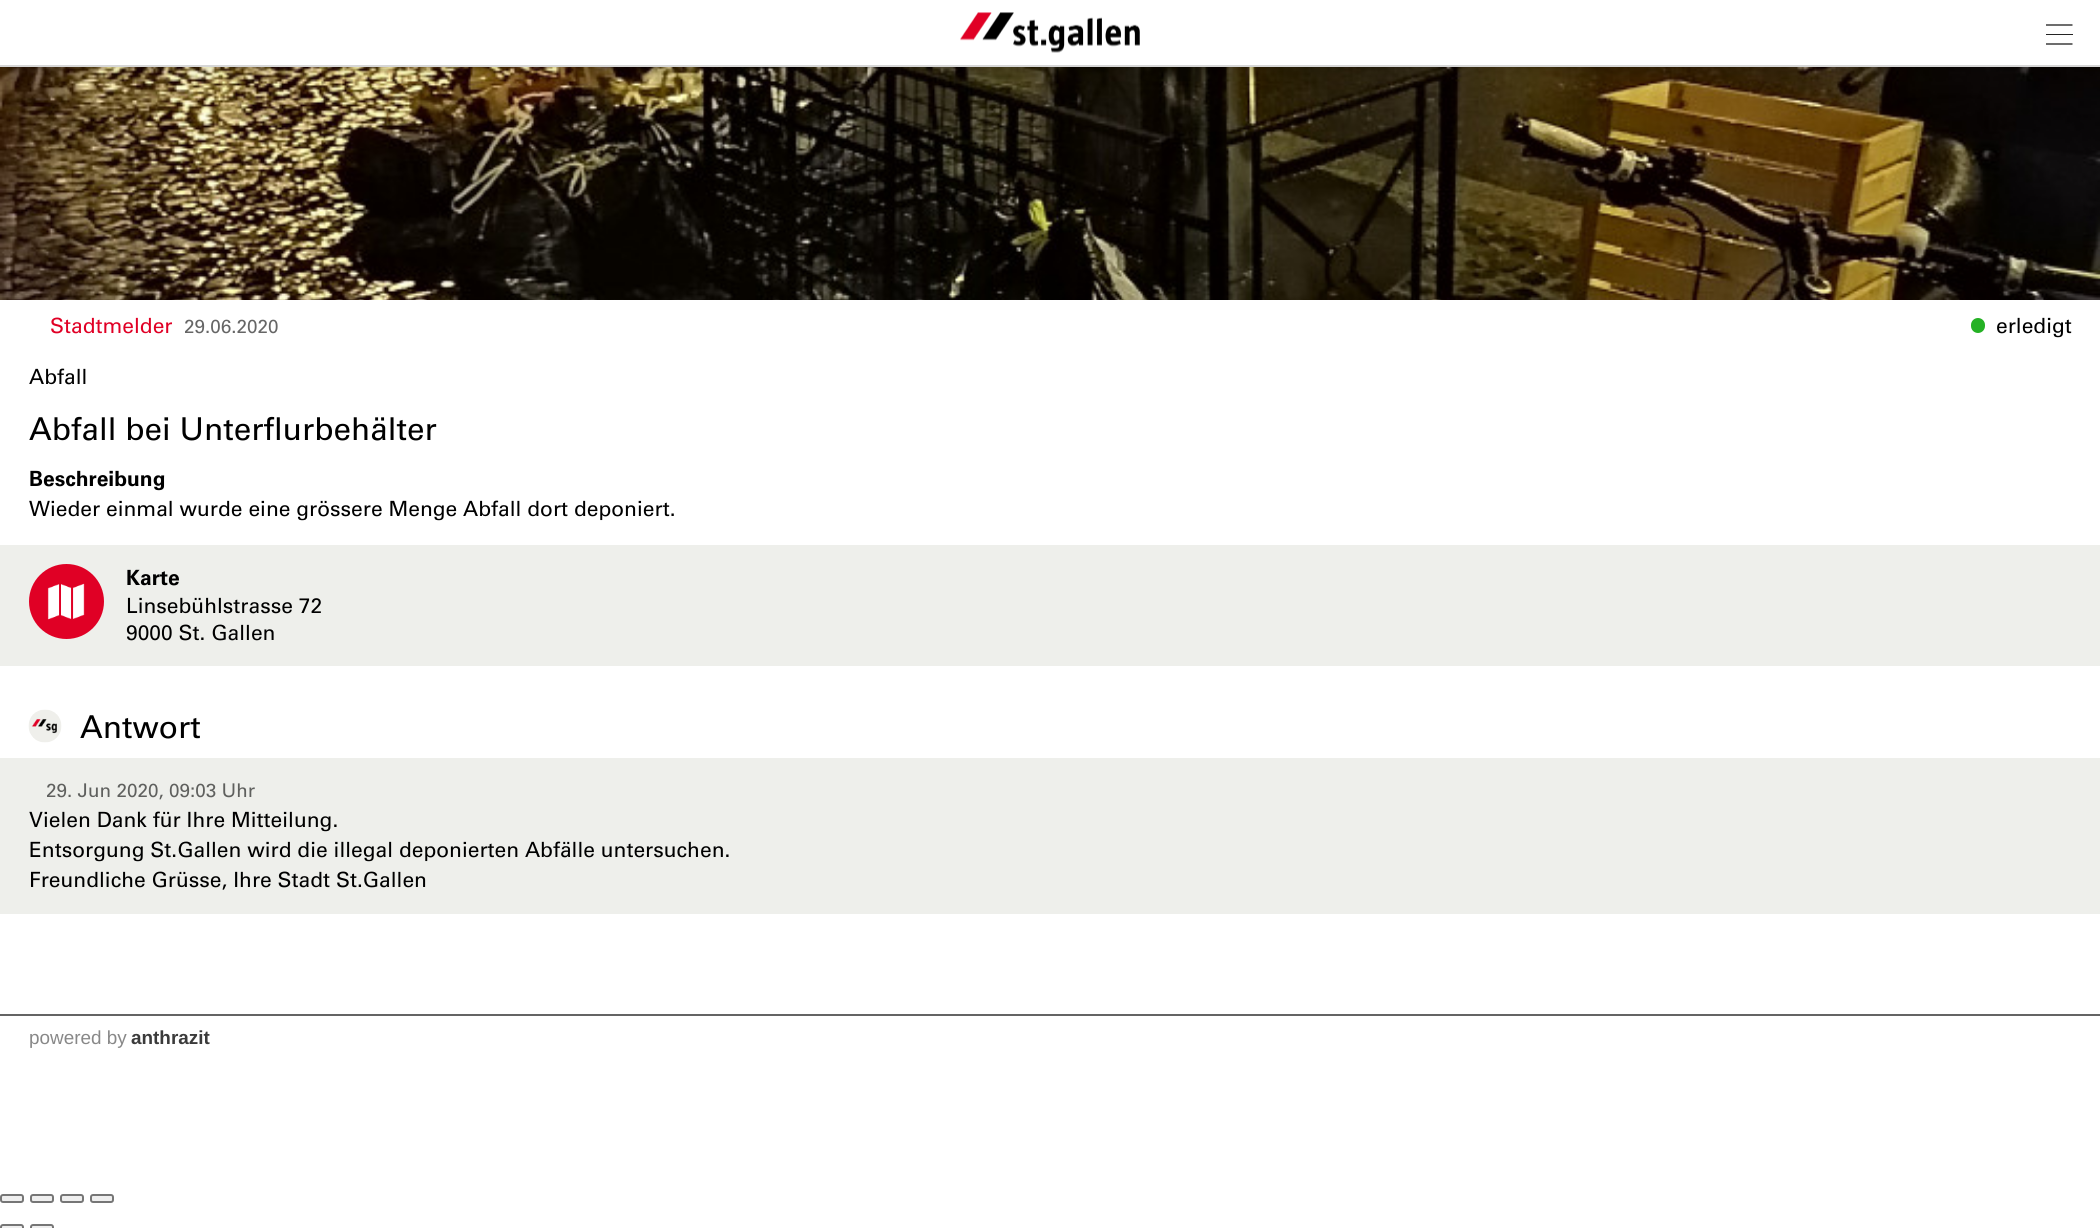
#include <cairo/cairo.h>
#include <math.h>
#include <stddef.h>


static void rounded_rect(cairo_t *cr, double x, double y, double w, double h, double r) {
  cairo_new_sub_path(cr);
  cairo_arc(cr, x + w - r, y + h - r, r, 0, M_PI / 2);
  cairo_arc(cr, x + r, y + h - r, r, M_PI / 2, M_PI);
  cairo_arc(cr, x + r, y + r, r, M_PI, 1.5 * M_PI);
  cairo_arc(cr, x + w - r, y + r, r, 1.5 * M_PI, 2 * M_PI);
  cairo_close_path(cr);
}

static void draw_shadow(cairo_t *cr, double x, double y, double w, double h, double r, double blur, double alpha) {
  cairo_push_group_with_content(cr, CAIRO_CONTENT_ALPHA);
  cairo_set_operator(cr, CAIRO_OPERATOR_SOURCE);
  for (int i = 15; i >= -15 && fmin(w, h) + blur * i / 3 > 0; i -= 2) {
    double e = blur * i / 6;
    cairo_set_source_rgba(cr, 0, 0, 0, alpha * erfc((i - 1) / 8.5) / 2);
    rounded_rect(cr, x - e, y - e, w + 2 * e, h + 2 * e, fmax(0, fmin(r + e + blur * .6, fmin(w, h) / 2 + e)));
    cairo_fill(cr);
  }
  cairo_pattern_t *soft = cairo_pop_group(cr);
  cairo_mask(cr, soft);
  cairo_pattern_destroy(soft);
}

static void draw_image(cairo_t *cr, const char *path, double x, double y, double w, double h) {
  cairo_surface_t *image = cairo_image_surface_create_from_png(path);
  cairo_save(cr);
  cairo_set_source_surface(cr, image, x, y);
  cairo_rectangle(cr, x, y, w, h);
  cairo_fill(cr);
  cairo_restore(cr);
  cairo_surface_destroy(image);
}

static void draw(cairo_t *cr) {
  cairo_set_source_rgb(cr, 1, 1, 1);
  cairo_paint(cr);
  draw_image(cr, "images/2.png", 0, 67, 2100, 233);
  cairo_set_source_rgb(cr, 0, 0, 0);
  draw_shadow(cr, 0, 0, 2100, 66, 0, 7.5, 0.2);
  cairo_set_source_rgb(cr, 1, 1, 1);
  cairo_rectangle(cr, 0, 0, 2100, 65);
  cairo_fill(cr);
  cairo_set_source_rgb(cr, 214 / 255.0, 214 / 255.0, 214 / 255.0);
  cairo_rectangle(cr, 0, 65, 2100, 2);
  cairo_fill(cr);
  draw_image(cr, "images/1.png", 960, 12, 180, 41);
  cairo_new_path(cr);
  cairo_move_to(cr, 2046, 25);
  cairo_line_to(cr, 2072.5, 25);
  cairo_set_source_rgb(cr, 36 / 255.0, 36 / 255.0, 36 / 255.0);
  cairo_set_line_width(cr, 1.3);
  cairo_set_line_join(cr, CAIRO_LINE_JOIN_ROUND);
  cairo_stroke(cr);
  cairo_rectangle(cr, 2046, 34, 27, 1);
  cairo_fill(cr);
  cairo_new_path(cr);
  cairo_move_to(cr, 2046, 44);
  cairo_line_to(cr, 2072.5, 44);
  cairo_stroke(cr);
  cairo_set_source_rgb(cr, 37 / 255.0, 177 / 255.0, 37 / 255.0);
  rounded_rect(cr, 1971, 318, 14, 15, 7);
  cairo_fill(cr);
  cairo_set_source_rgb(cr, 238 / 255.0, 239 / 255.0, 235 / 255.0);
  cairo_rectangle(cr, 0, 545, 2100, 121);
  cairo_fill(cr);
  cairo_set_source_rgb(cr, 224 / 255.0, 0, 37 / 255.0);
  cairo_arc(cr, 66.5, 601.5, 37.5, 0, 2 * M_PI);
  cairo_fill(cr);
  draw_image(cr, "images/3.png", 47, 583, 38, 37);
  draw_image(cr, "images/4.png", 28, 709, 34, 34);
  cairo_set_source_rgb(cr, 238 / 255.0, 239 / 255.0, 235 / 255.0);
  cairo_rectangle(cr, 0, 758, 2100, 156);
  cairo_fill(cr);
  cairo_set_source_rgb(cr, 100 / 255.0, 100 / 255.0, 100 / 255.0);
  cairo_rectangle(cr, 0, 1014, 2100, 2);
  cairo_fill(cr);
  cairo_set_source_rgb(cr, 239 / 255.0, 239 / 255.0, 239 / 255.0);
  rounded_rect(cr, 1, 1195, 22, 7, 2);
  cairo_fill_preserve(cr);
  cairo_set_source_rgb(cr, 118 / 255.0, 118 / 255.0, 118 / 255.0);
  cairo_set_line_width(cr, 2);
  cairo_set_line_join(cr, CAIRO_LINE_JOIN_MITER);
  cairo_stroke(cr);
  cairo_set_source_rgb(cr, 239 / 255.0, 239 / 255.0, 239 / 255.0);
  rounded_rect(cr, 31, 1195, 22, 7, 2);
  cairo_fill_preserve(cr);
  cairo_set_source_rgb(cr, 118 / 255.0, 118 / 255.0, 118 / 255.0);
  cairo_stroke(cr);
  cairo_set_source_rgb(cr, 239 / 255.0, 239 / 255.0, 239 / 255.0);
  rounded_rect(cr, 61, 1195, 22, 7, 2);
  cairo_fill_preserve(cr);
  cairo_set_source_rgb(cr, 118 / 255.0, 118 / 255.0, 118 / 255.0);
  cairo_stroke(cr);
  cairo_set_source_rgb(cr, 239 / 255.0, 239 / 255.0, 239 / 255.0);
  rounded_rect(cr, 91, 1195, 22, 7, 2);
  cairo_fill_preserve(cr);
  cairo_set_source_rgb(cr, 118 / 255.0, 118 / 255.0, 118 / 255.0);
  cairo_stroke(cr);
  cairo_set_source_rgb(cr, 239 / 255.0, 239 / 255.0, 239 / 255.0);
  rounded_rect(cr, 1, 1225, 22, 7, 2);
  cairo_fill_preserve(cr);
  cairo_set_source_rgb(cr, 118 / 255.0, 118 / 255.0, 118 / 255.0);
  cairo_stroke(cr);
  cairo_set_source_rgb(cr, 239 / 255.0, 239 / 255.0, 239 / 255.0);
  rounded_rect(cr, 31, 1225, 22, 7, 2);
  cairo_fill_preserve(cr);
  cairo_set_source_rgb(cr, 118 / 255.0, 118 / 255.0, 118 / 255.0);
  cairo_stroke(cr);
  cairo_select_font_face(cr, "Univers", CAIRO_FONT_SLANT_NORMAL, CAIRO_FONT_WEIGHT_NORMAL);
  cairo_set_font_size(cr, 21);
  cairo_set_source_rgb(cr, 224 / 255.0, 0, 37 / 255.0);
  cairo_move_to(cr, 50, 333);
  cairo_show_text(cr, "Stadtmelder");
  cairo_set_font_size(cr, 18.9);
  cairo_set_source_rgb(cr, 102 / 255.0, 102 / 255.0, 102 / 255.0);
  cairo_move_to(cr, 184, 333);
  cairo_show_text(cr, "29.06.2020");
  cairo_set_font_size(cr, 21);
  cairo_set_source_rgb(cr, 0, 0, 0);
  cairo_move_to(cr, 1996, 333);
  cairo_show_text(cr, "erledigt");
  cairo_move_to(cr, 29, 384);
  cairo_show_text(cr, "Abfall");
  cairo_set_font_size(cr, 31.5);
  cairo_move_to(cr, 29, 440);
  cairo_show_text(cr, "Abfall bei Unterflurbehälter");
  cairo_select_font_face(cr, "Univers", CAIRO_FONT_SLANT_NORMAL, CAIRO_FONT_WEIGHT_BOLD);
  cairo_set_font_size(cr, 21);
  cairo_move_to(cr, 29, 486);
  cairo_show_text(cr, "Beschreibung");
  cairo_select_font_face(cr, "Univers", CAIRO_FONT_SLANT_NORMAL, CAIRO_FONT_WEIGHT_NORMAL);
  cairo_move_to(cr, 29, 516);
  cairo_show_text(cr, "Wieder einmal wurde eine grössere Menge Abfall dort deponiert.");
  cairo_select_font_face(cr, "Univers", CAIRO_FONT_SLANT_NORMAL, CAIRO_FONT_WEIGHT_BOLD);
  cairo_move_to(cr, 126, 585);
  cairo_show_text(cr, "Karte");
  cairo_select_font_face(cr, "Univers", CAIRO_FONT_SLANT_NORMAL, CAIRO_FONT_WEIGHT_NORMAL);
  cairo_move_to(cr, 126, 613);
  cairo_show_text(cr, "Linsebühlstrasse 72");
  cairo_move_to(cr, 126, 640);
  cairo_show_text(cr, "9000 St. Gallen");
  cairo_set_font_size(cr, 31.5);
  cairo_move_to(cr, 80, 738);
  cairo_show_text(cr, "Antwort");
  cairo_set_font_size(cr, 18.9);
  cairo_set_source_rgb(cr, 95 / 255.0, 96 / 255.0, 94 / 255.0);
  cairo_move_to(cr, 46, 797);
  cairo_show_text(cr, "29. Jun 2020, 09:03 Uhr");
  cairo_set_font_size(cr, 21);
  cairo_set_source_rgb(cr, 0, 0, 0);
  cairo_move_to(cr, 29, 827);
  cairo_show_text(cr, "Vielen Dank für Ihre Mitteilung.");
  cairo_move_to(cr, 29, 857);
  cairo_show_text(cr, "Entsorgung St.Gallen wird die illegal deponierten Abfälle untersuchen.");
  cairo_move_to(cr, 29, 887);
  cairo_show_text(cr, "Freundliche Grüsse, Ihre Stadt St.Gallen");
  cairo_select_font_face(cr, "Liberation Sans", CAIRO_FONT_SLANT_NORMAL, CAIRO_FONT_WEIGHT_NORMAL);
  cairo_set_font_size(cr, 18.9);
  cairo_set_source_rgb(cr, 136 / 255.0, 136 / 255.0, 136 / 255.0);
  cairo_move_to(cr, 29, 1044);
  cairo_show_text(cr, "powered by");
  cairo_select_font_face(cr, "Liberation Sans", CAIRO_FONT_SLANT_NORMAL, CAIRO_FONT_WEIGHT_BOLD);
  cairo_set_source_rgb(cr, 59 / 255.0, 59 / 255.0, 59 / 255.0);
  cairo_move_to(cr, 131, 1044);
  cairo_show_text(cr, "anthrazit");
}

int main(void) {
  cairo_surface_t *surface = cairo_image_surface_create(CAIRO_FORMAT_RGB24, 2100, 1228);
  cairo_t *cr = cairo_create(surface);
  cairo_font_options_t *options = cairo_font_options_create();
  cairo_font_options_set_hint_metrics(options, CAIRO_HINT_METRICS_OFF);
  cairo_font_options_set_hint_style(options, CAIRO_HINT_STYLE_NONE);
  cairo_set_font_options(cr, options);
  cairo_set_miter_limit(cr, 4);
  draw(cr);
  cairo_surface_write_to_png(surface, "out.png");
  cairo_font_options_destroy(options);
  cairo_destroy(cr);
  cairo_surface_destroy(surface);
  return 0;
}
